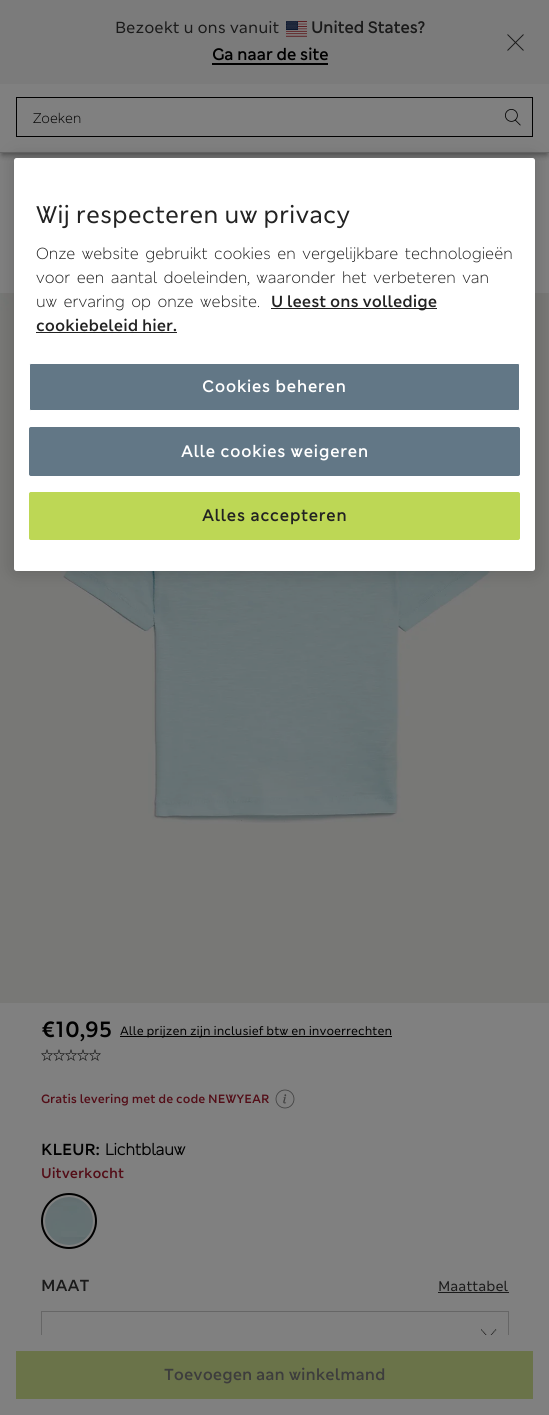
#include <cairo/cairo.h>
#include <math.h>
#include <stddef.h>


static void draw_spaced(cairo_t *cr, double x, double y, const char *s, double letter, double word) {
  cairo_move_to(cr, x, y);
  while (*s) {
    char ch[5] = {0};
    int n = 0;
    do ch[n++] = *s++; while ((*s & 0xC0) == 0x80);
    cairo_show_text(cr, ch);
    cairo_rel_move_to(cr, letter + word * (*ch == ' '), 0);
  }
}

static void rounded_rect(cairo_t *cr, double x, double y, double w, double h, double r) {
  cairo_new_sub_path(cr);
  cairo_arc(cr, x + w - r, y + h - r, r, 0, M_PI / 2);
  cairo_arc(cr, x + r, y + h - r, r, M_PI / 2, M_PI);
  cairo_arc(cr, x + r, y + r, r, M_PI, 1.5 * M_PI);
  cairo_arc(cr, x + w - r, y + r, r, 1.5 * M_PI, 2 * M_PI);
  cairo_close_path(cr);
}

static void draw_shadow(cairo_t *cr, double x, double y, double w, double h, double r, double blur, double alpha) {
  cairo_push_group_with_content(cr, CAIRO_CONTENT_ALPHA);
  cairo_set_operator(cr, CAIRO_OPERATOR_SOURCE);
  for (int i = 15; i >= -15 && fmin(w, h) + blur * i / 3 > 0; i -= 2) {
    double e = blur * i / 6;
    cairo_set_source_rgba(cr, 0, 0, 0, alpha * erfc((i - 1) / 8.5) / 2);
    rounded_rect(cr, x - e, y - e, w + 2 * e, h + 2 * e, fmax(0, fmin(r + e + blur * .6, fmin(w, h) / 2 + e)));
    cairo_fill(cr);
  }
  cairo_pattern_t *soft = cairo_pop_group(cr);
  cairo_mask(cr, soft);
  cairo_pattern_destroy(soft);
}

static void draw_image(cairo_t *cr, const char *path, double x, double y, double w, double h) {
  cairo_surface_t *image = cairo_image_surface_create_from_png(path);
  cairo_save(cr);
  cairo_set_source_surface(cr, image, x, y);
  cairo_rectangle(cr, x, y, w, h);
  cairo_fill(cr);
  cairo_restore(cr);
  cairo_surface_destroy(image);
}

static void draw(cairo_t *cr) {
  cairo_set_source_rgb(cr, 128 / 255.0, 128 / 255.0, 128 / 255.0);
  cairo_paint(cr);
  cairo_save(cr);
  cairo_rectangle(cr, 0, 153, 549, 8);
  cairo_clip(cr);
  cairo_set_source_rgb(cr, 77 / 255.0, 77 / 255.0, 77 / 255.0);
  draw_shadow(cr, 2, 6, 545, 149, 0, 3, 1);
  cairo_restore(cr);
  cairo_set_source_rgb(cr, 123 / 255.0, 123 / 255.0, 123 / 255.0);
  cairo_rectangle(cr, 0, 0, 549, 84);
  cairo_fill(cr);
  draw_image(cr, "images/1.png", 286, 21, 21, 16);
  cairo_set_source_rgb(cr, 0, 0, 0);
  cairo_rectangle(cr, 212, 63, 116, 2);
  cairo_fill(cr);
  cairo_new_path(cr);
  cairo_move_to(cr, 507.5, 34.5);
  cairo_line_to(cr, 523.5, 50.5);
  cairo_move_to(cr, 523.5, 34.5);
  cairo_line_to(cr, 507.5, 50.5);
  cairo_set_source_rgb(cr, 26 / 255.0, 26 / 255.0, 26 / 255.0);
  cairo_set_line_width(cr, 1);
  cairo_stroke(cr);
  cairo_set_source_rgb(cr, 102 / 255.0, 102 / 255.0, 102 / 255.0);
  cairo_rectangle(cr, 0, 152, 549, 1);
  cairo_fill(cr);
  cairo_rectangle(cr, 16.5, 97.5, 516, 39);
  cairo_set_source_rgb(cr, 0, 0, 0);
  cairo_stroke(cr);
  draw_image(cr, "images/2.png", 505, 109, 16, 17);
  draw_image(cr, "images/3.png", 0, 293, 549, 710);
  cairo_rectangle(cr, 120, 1036, 272, 1);
  cairo_fill(cr);
  draw_image(cr, "images/4.png", 41, 1049, 60, 12);
  draw_image(cr, "images/5.png", 275, 1089, 20, 20);
  cairo_arc(cr, 69, 1221, 27, 0, 2 * M_PI);
  cairo_set_line_width(cr, 2);
  cairo_stroke(cr);
  draw_image(cr, "images/6.png", 45, 1197, 48, 48);
  cairo_set_source_rgb(cr, 26 / 255.0, 26 / 255.0, 26 / 255.0);
  cairo_rectangle(cr, 438, 1292, 71, 1);
  cairo_fill(cr);
  cairo_rectangle(cr, 41.5, 1311.5, 467, 44);
  cairo_set_source_rgb(cr, 102 / 255.0, 102 / 255.0, 102 / 255.0);
  cairo_set_line_width(cr, 1);
  cairo_stroke(cr);
  draw_image(cr, "images/7.png", 481, 1329, 16, 6);
  cairo_set_source_rgb(cr, 128 / 255.0, 128 / 255.0, 128 / 255.0);
  cairo_rectangle(cr, 41, 1335, 468, 21);
  cairo_fill(cr);
  cairo_set_source_rgb(cr, 106 / 255.0, 115 / 255.0, 73 / 255.0);
  cairo_rectangle(cr, 16, 1351, 517, 48);
  cairo_fill(cr);
  cairo_set_source_rgb(cr, 0, 0, 0);
  draw_shadow(cr, 14, 158, 521, 413, 2.5, 9, 0.2);
  cairo_set_source_rgb(cr, 1, 1, 1);
  rounded_rect(cr, 14, 158, 521, 413, 2.5);
  cairo_fill(cr);
  cairo_set_source_rgb(cr, 34 / 255.0, 34 / 255.0, 34 / 255.0);
  cairo_rectangle(cr, 271, 308, 166, 1);
  cairo_fill(cr);
  cairo_rectangle(cr, 36, 332, 141, 1);
  cairo_fill(cr);
  cairo_set_source_rgb(cr, 98 / 255.0, 119 / 255.0, 134 / 255.0);
  rounded_rect(cr, 29.5, 363.5, 490, 47, 1.5);
  cairo_fill_preserve(cr);
  cairo_set_source_rgb(cr, 1, 1, 1);
  cairo_stroke(cr);
  cairo_set_source_rgb(cr, 98 / 255.0, 119 / 255.0, 134 / 255.0);
  rounded_rect(cr, 29.5, 427.5, 490, 48, 1.5);
  cairo_fill_preserve(cr);
  cairo_stroke(cr);
  cairo_set_source_rgb(cr, 189 / 255.0, 215 / 255.0, 85 / 255.0);
  rounded_rect(cr, 29.5, 492.5, 490, 47, 1.5);
  cairo_fill_preserve(cr);
  cairo_stroke(cr);
  cairo_select_font_face(cr, "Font", CAIRO_FONT_SLANT_NORMAL, CAIRO_FONT_WEIGHT_NORMAL);
  cairo_set_font_size(cr, 16);
  cairo_set_source_rgb(cr, 26 / 255.0, 26 / 255.0, 26 / 255.0);
  cairo_move_to(cr, 115, 33);
  cairo_show_text(cr, "Bezoekt u ons vanuit");
  cairo_select_font_face(cr, "Font", CAIRO_FONT_SLANT_NORMAL, CAIRO_FONT_WEIGHT_BOLD);
  cairo_move_to(cr, 311, 33);
  cairo_show_text(cr, "United States?");
  cairo_set_source_rgb(cr, 0, 0, 0);
  cairo_move_to(cr, 212, 60);
  cairo_show_text(cr, "Ga naar de site");
  cairo_select_font_face(cr, "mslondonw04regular", CAIRO_FONT_SLANT_NORMAL, CAIRO_FONT_WEIGHT_NORMAL);
  cairo_set_font_size(cr, 14);
  cairo_move_to(cr, 33, 123);
  cairo_show_text(cr, "Zoeken");
  cairo_select_font_face(cr, "Font SemiBold", CAIRO_FONT_SLANT_NORMAL, CAIRO_FONT_WEIGHT_NORMAL);
  cairo_set_font_size(cr, 22);
  cairo_move_to(cr, 41, 1037);
  cairo_show_text(cr, "€10,95");
  cairo_select_font_face(cr, "Font", CAIRO_FONT_SLANT_NORMAL, CAIRO_FONT_WEIGHT_NORMAL);
  cairo_set_font_size(cr, 12);
  cairo_move_to(cr, 120, 1035);
  cairo_show_text(cr, "Alle prijzen zijn inclusief btw en invoerrechten");
  cairo_select_font_face(cr, "Font SemiBold", CAIRO_FONT_SLANT_NORMAL, CAIRO_FONT_WEIGHT_NORMAL);
  cairo_set_source_rgb(cr, 83 / 255.0, 13 / 255.0, 23 / 255.0);
  cairo_move_to(cr, 41, 1103);
  cairo_show_text(cr, "Gratis levering met de code NEWYEAR");
  cairo_set_font_size(cr, 16);
  cairo_set_source_rgb(cr, 0, 0, 0);
  cairo_move_to(cr, 41, 1155);
  cairo_show_text(cr, "KLEUR:");
  cairo_select_font_face(cr, "mslondonw04regular", CAIRO_FONT_SLANT_NORMAL, CAIRO_FONT_WEIGHT_BOLD);
  cairo_move_to(cr, 105, 1155);
  cairo_show_text(cr, "Lichtblauw");
  cairo_select_font_face(cr, "Font SemiBold", CAIRO_FONT_SLANT_NORMAL, CAIRO_FONT_WEIGHT_NORMAL);
  cairo_set_font_size(cr, 14);
  cairo_set_source_rgb(cr, 83 / 255.0, 13 / 255.0, 23 / 255.0);
  cairo_move_to(cr, 41, 1178);
  cairo_show_text(cr, "Uitverkocht");
  cairo_set_font_size(cr, 16);
  cairo_set_source_rgb(cr, 26 / 255.0, 26 / 255.0, 26 / 255.0);
  cairo_move_to(cr, 41, 1291);
  cairo_show_text(cr, "MAAT");
  cairo_select_font_face(cr, "Font", CAIRO_FONT_SLANT_NORMAL, CAIRO_FONT_WEIGHT_NORMAL);
  cairo_set_font_size(cr, 14);
  cairo_move_to(cr, 438, 1291);
  cairo_show_text(cr, "Maattabel");
  cairo_select_font_face(cr, "Font SemiBold", CAIRO_FONT_SLANT_NORMAL, CAIRO_FONT_WEIGHT_NORMAL);
  cairo_set_font_size(cr, 16);
  cairo_set_source_rgb(cr, 61 / 255.0, 61 / 255.0, 61 / 255.0);
  cairo_move_to(cr, 164, 1380);
  cairo_show_text(cr, "Toevoegen aan winkelmand");
  cairo_select_font_face(cr, "Font", CAIRO_FONT_SLANT_NORMAL, CAIRO_FONT_WEIGHT_NORMAL);
  cairo_set_font_size(cr, 24);
  cairo_set_source_rgb(cr, 34 / 255.0, 34 / 255.0, 34 / 255.0);
  cairo_move_to(cr, 36, 223);
  cairo_show_text(cr, "Wij respecteren uw privacy");
  cairo_select_font_face(cr, "mslondonw04regular", CAIRO_FONT_SLANT_NORMAL, CAIRO_FONT_WEIGHT_NORMAL);
  cairo_set_font_size(cr, 16);
  cairo_move_to(cr, 36, 259);
  cairo_show_text(cr, "Onze website gebruikt cookies en vergelijkbare technologieën");
  cairo_move_to(cr, 36, 283);
  cairo_show_text(cr, "voor een aantal doeleinden, waaronder het verbeteren van");
  cairo_move_to(cr, 36, 307);
  cairo_show_text(cr, "uw ervaring op onze website.");
  cairo_select_font_face(cr, "Font SemiBold", CAIRO_FONT_SLANT_NORMAL, CAIRO_FONT_WEIGHT_NORMAL);
  cairo_move_to(cr, 271, 307);
  cairo_show_text(cr, "U leest ons volledige");
  cairo_move_to(cr, 36, 331);
  cairo_show_text(cr, "cookiebeleid hier.");
  cairo_select_font_face(cr, "Font", CAIRO_FONT_SLANT_NORMAL, CAIRO_FONT_WEIGHT_BOLD);
  cairo_set_source_rgb(cr, 1, 1, 1);
  draw_spaced(cr, 202, 392, "Cookies beheren", 0.8, 0);
  draw_spaced(cr, 181, 457, "Alle cookies weigeren", 0.8, 0);
  cairo_set_source_rgb(cr, 34 / 255.0, 34 / 255.0, 34 / 255.0);
  draw_spaced(cr, 202, 521, "Alles accepteren", 0.8, 0);
}

int main(void) {
  cairo_surface_t *surface = cairo_image_surface_create(CAIRO_FORMAT_RGB24, 549, 1415);
  cairo_t *cr = cairo_create(surface);
  cairo_font_options_t *options = cairo_font_options_create();
  cairo_font_options_set_hint_metrics(options, CAIRO_HINT_METRICS_OFF);
  cairo_font_options_set_hint_style(options, CAIRO_HINT_STYLE_NONE);
  cairo_set_font_options(cr, options);
  cairo_set_miter_limit(cr, 4);
  draw(cr);
  cairo_surface_write_to_png(surface, "out.png");
  cairo_font_options_destroy(options);
  cairo_destroy(cr);
  cairo_surface_destroy(surface);
  return 0;
}
